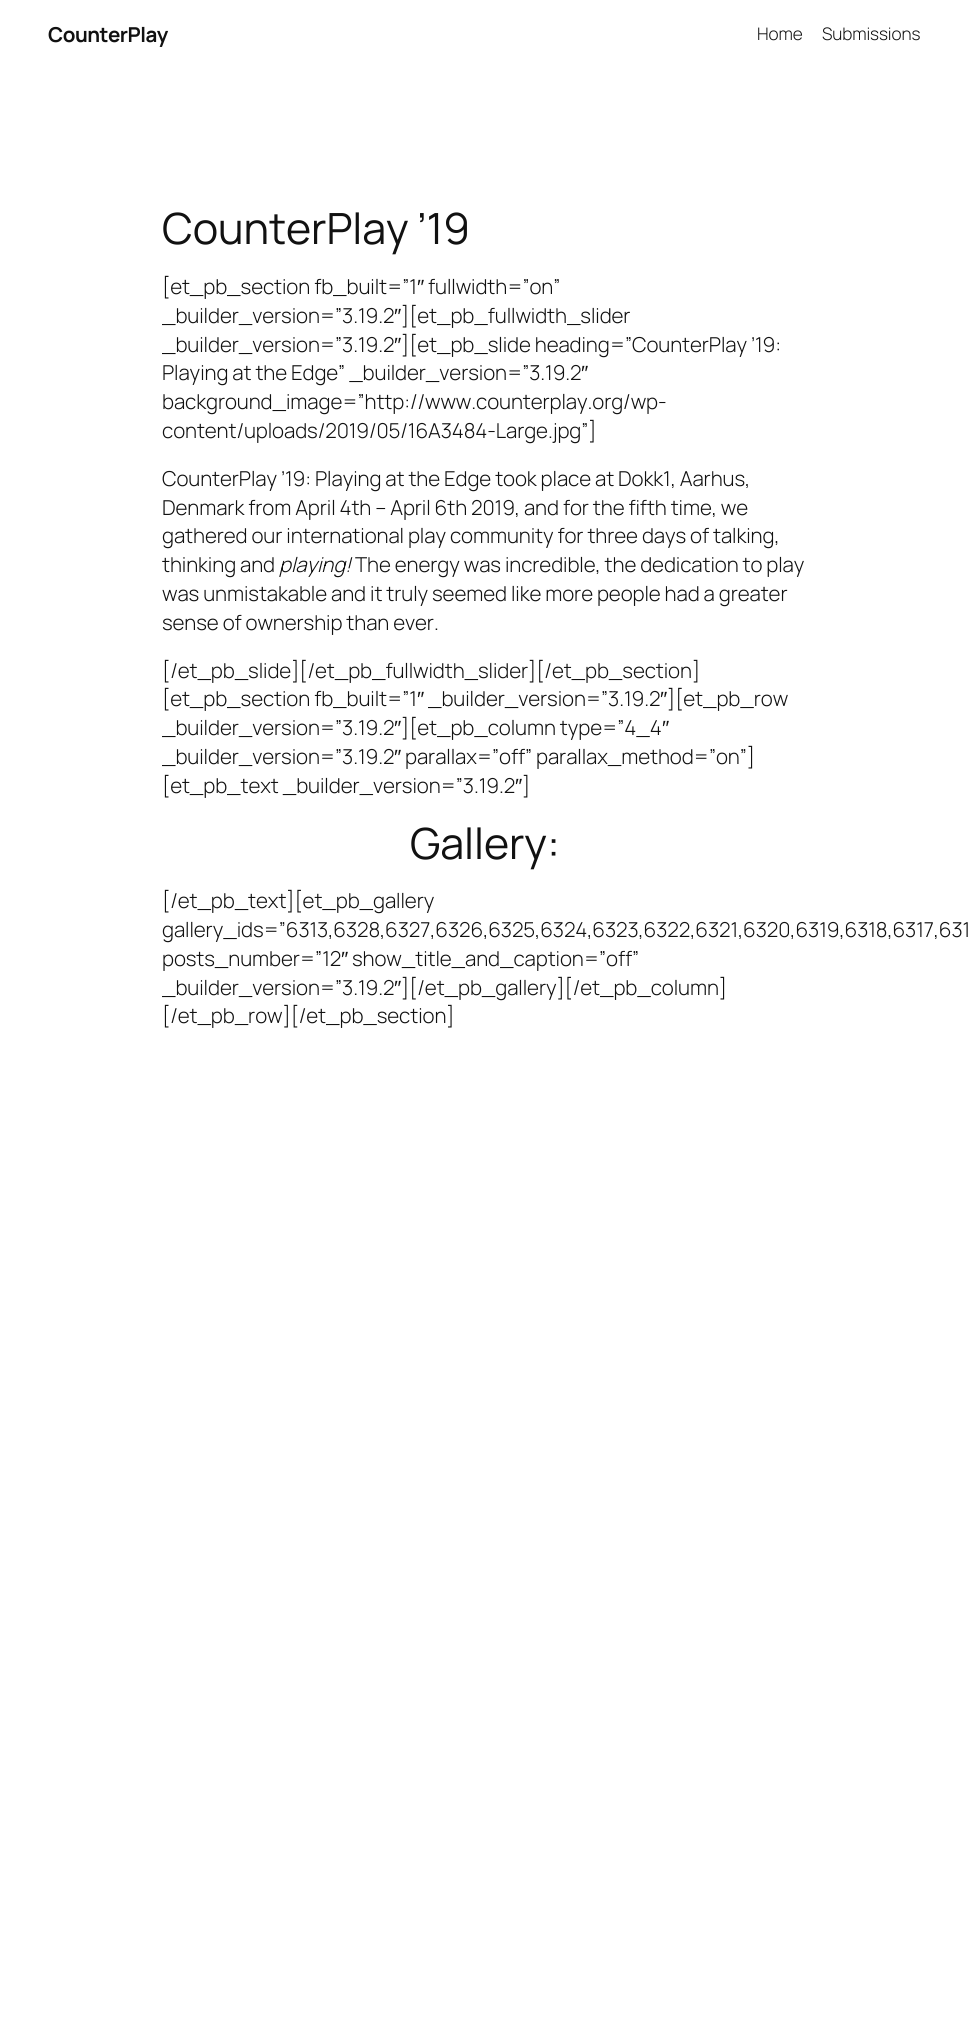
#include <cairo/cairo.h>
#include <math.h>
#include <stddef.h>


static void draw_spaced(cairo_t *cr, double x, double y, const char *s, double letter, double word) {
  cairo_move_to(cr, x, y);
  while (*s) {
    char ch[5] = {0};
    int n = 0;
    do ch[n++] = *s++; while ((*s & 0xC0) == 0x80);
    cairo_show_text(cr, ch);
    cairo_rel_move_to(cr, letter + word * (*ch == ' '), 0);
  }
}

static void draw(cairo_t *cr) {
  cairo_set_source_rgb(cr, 1, 1, 1);
  cairo_paint(cr);
  cairo_select_font_face(cr, "Manrope", CAIRO_FONT_SLANT_NORMAL, CAIRO_FONT_WEIGHT_BOLD);
  cairo_set_font_size(cr, 20.55);
  cairo_set_source_rgb(cr, 17 / 255.0, 17 / 255.0, 17 / 255.0);
  draw_spaced(cr, 48, 42, "CounterPlay", -0.5, 0);
  cairo_select_font_face(cr, "Manrope Light", CAIRO_FONT_SLANT_NORMAL, CAIRO_FONT_WEIGHT_NORMAL);
  cairo_set_font_size(cr, 17.25);
  draw_spaced(cr, 757, 40, "Home", -0.1, 0);
  draw_spaced(cr, 822, 40, "Submissions", -0.1, 0);
  cairo_select_font_face(cr, "Manrope", CAIRO_FONT_SLANT_NORMAL, CAIRO_FONT_WEIGHT_NORMAL);
  cairo_set_font_size(cr, 43);
  draw_spaced(cr, 162, 244, "CounterPlay ’19", -0.1, 0);
  cairo_select_font_face(cr, "Manrope Light", CAIRO_FONT_SLANT_NORMAL, CAIRO_FONT_WEIGHT_NORMAL);
  cairo_set_font_size(cr, 20.55);
  draw_spaced(cr, 162, 294, "[et_pb_section fb_built=”1", -0.1, 0);
  cairo_select_font_face(cr, "Liberation Sans", CAIRO_FONT_SLANT_NORMAL, CAIRO_FONT_WEIGHT_NORMAL);
  draw_spaced(cr, 417, 294, "″", -0.1, 0);
  cairo_select_font_face(cr, "Manrope Light", CAIRO_FONT_SLANT_NORMAL, CAIRO_FONT_WEIGHT_NORMAL);
  draw_spaced(cr, 428, 294, "fullwidth=”on”", -0.1, 0);
  draw_spaced(cr, 162, 323, "_builder_version=”3.19.2", -0.1, 0);
  cairo_select_font_face(cr, "Liberation Sans", CAIRO_FONT_SLANT_NORMAL, CAIRO_FONT_WEIGHT_NORMAL);
  draw_spaced(cr, 394, 323, "″", -0.1, 0);
  cairo_select_font_face(cr, "Manrope Light", CAIRO_FONT_SLANT_NORMAL, CAIRO_FONT_WEIGHT_NORMAL);
  draw_spaced(cr, 401, 323, "][et_pb_fullwidth_slider", -0.1, 0);
  draw_spaced(cr, 162, 352, "_builder_version=”3.19.2", -0.1, 0);
  cairo_select_font_face(cr, "Liberation Sans", CAIRO_FONT_SLANT_NORMAL, CAIRO_FONT_WEIGHT_NORMAL);
  draw_spaced(cr, 394, 352, "″", -0.1, 0);
  cairo_select_font_face(cr, "Manrope Light", CAIRO_FONT_SLANT_NORMAL, CAIRO_FONT_WEIGHT_NORMAL);
  draw_spaced(cr, 401, 352, "][et_pb_slide heading=”CounterPlay ’19:", -0.1, 0);
  draw_spaced(cr, 162, 380, "Playing at the Edge” _builder_version=”3.19.2", -0.1, 0);
  cairo_select_font_face(cr, "Liberation Sans", CAIRO_FONT_SLANT_NORMAL, CAIRO_FONT_WEIGHT_NORMAL);
  draw_spaced(cr, 581, 380, "″", -0.1, 0);
  cairo_select_font_face(cr, "Manrope Light", CAIRO_FONT_SLANT_NORMAL, CAIRO_FONT_WEIGHT_NORMAL);
  draw_spaced(cr, 162, 409, "background_image=”http://www.counterplay.org/wp-", -0.1, 0);
  draw_spaced(cr, 162, 438, "content/uploads/2019/05/16A3484-Large.jpg”]", -0.1, 0);
  draw_spaced(cr, 162, 486, "CounterPlay ’19: Playing at the Edge took place at Dokk1, Aarhus,", -0.1, 0);
  draw_spaced(cr, 162, 515, "Denmark from April 4th – April 6th 2019, and for the fifth time, we", -0.1, 0);
  draw_spaced(cr, 162, 543, "gathered our international play community for three days of talking,", -0.1, 0);
  draw_spaced(cr, 162, 572, "thinking and", -0.1, 0);
  cairo_select_font_face(cr, "Manrope Light", CAIRO_FONT_SLANT_ITALIC, CAIRO_FONT_WEIGHT_NORMAL);
  draw_spaced(cr, 279, 572, "playing!", -0.1, 0);
  cairo_select_font_face(cr, "Manrope Light", CAIRO_FONT_SLANT_NORMAL, CAIRO_FONT_WEIGHT_NORMAL);
  draw_spaced(cr, 355, 572, "The energy was incredible, the dedication to play", -0.1, 0);
  draw_spaced(cr, 162, 601, "was unmistakable and it truly seemed like more people had a greater", -0.1, 0);
  draw_spaced(cr, 162, 630, "sense of ownership than ever.", -0.1, 0);
  draw_spaced(cr, 162, 678, "[/et_pb_slide][/et_pb_fullwidth_slider][/et_pb_section]", -0.1, 0);
  draw_spaced(cr, 162, 706, "[et_pb_section fb_built=”1", -0.1, 0);
  cairo_select_font_face(cr, "Liberation Sans", CAIRO_FONT_SLANT_NORMAL, CAIRO_FONT_WEIGHT_NORMAL);
  draw_spaced(cr, 417, 706, "″", -0.1, 0);
  cairo_select_font_face(cr, "Manrope Light", CAIRO_FONT_SLANT_NORMAL, CAIRO_FONT_WEIGHT_NORMAL);
  draw_spaced(cr, 428, 706, "_builder_version=”3.19.2", -0.1, 0);
  cairo_select_font_face(cr, "Liberation Sans", CAIRO_FONT_SLANT_NORMAL, CAIRO_FONT_WEIGHT_NORMAL);
  draw_spaced(cr, 660, 706, "″", -0.1, 0);
  cairo_select_font_face(cr, "Manrope Light", CAIRO_FONT_SLANT_NORMAL, CAIRO_FONT_WEIGHT_NORMAL);
  draw_spaced(cr, 667, 706, "][et_pb_row", -0.1, 0);
  draw_spaced(cr, 162, 735, "_builder_version=”3.19.2", -0.1, 0);
  cairo_select_font_face(cr, "Liberation Sans", CAIRO_FONT_SLANT_NORMAL, CAIRO_FONT_WEIGHT_NORMAL);
  draw_spaced(cr, 394, 735, "″", -0.1, 0);
  cairo_select_font_face(cr, "Manrope Light", CAIRO_FONT_SLANT_NORMAL, CAIRO_FONT_WEIGHT_NORMAL);
  draw_spaced(cr, 401, 735, "][et_pb_column type=”4_4", -0.1, 0);
  cairo_select_font_face(cr, "Liberation Sans", CAIRO_FONT_SLANT_NORMAL, CAIRO_FONT_WEIGHT_NORMAL);
  draw_spaced(cr, 662, 735, "″", -0.1, 0);
  cairo_select_font_face(cr, "Manrope Light", CAIRO_FONT_SLANT_NORMAL, CAIRO_FONT_WEIGHT_NORMAL);
  draw_spaced(cr, 162, 764, "_builder_version=”3.19.2", -0.1, 0);
  cairo_select_font_face(cr, "Liberation Sans", CAIRO_FONT_SLANT_NORMAL, CAIRO_FONT_WEIGHT_NORMAL);
  draw_spaced(cr, 394, 764, "″", -0.1, 0);
  cairo_select_font_face(cr, "Manrope Light", CAIRO_FONT_SLANT_NORMAL, CAIRO_FONT_WEIGHT_NORMAL);
  draw_spaced(cr, 405, 764, "parallax=”off” parallax_method=”on”]", -0.1, 0);
  draw_spaced(cr, 162, 793, "[et_pb_text _builder_version=”3.19.2", -0.1, 0);
  cairo_select_font_face(cr, "Liberation Sans", CAIRO_FONT_SLANT_NORMAL, CAIRO_FONT_WEIGHT_NORMAL);
  draw_spaced(cr, 515, 793, "″", -0.1, 0);
  cairo_select_font_face(cr, "Manrope Light", CAIRO_FONT_SLANT_NORMAL, CAIRO_FONT_WEIGHT_NORMAL);
  draw_spaced(cr, 522, 793, "]", -0.1, 0);
  cairo_select_font_face(cr, "Manrope", CAIRO_FONT_SLANT_NORMAL, CAIRO_FONT_WEIGHT_NORMAL);
  cairo_set_font_size(cr, 43);
  draw_spaced(cr, 410, 859, "Gallery:", -0.1, 0);
  cairo_select_font_face(cr, "Manrope Light", CAIRO_FONT_SLANT_NORMAL, CAIRO_FONT_WEIGHT_NORMAL);
  cairo_set_font_size(cr, 20.55);
  draw_spaced(cr, 162, 908, "[/et_pb_text][et_pb_gallery", -0.1, 0);
  draw_spaced(cr, 162, 937, "gallery_ids=”6313,6328,6327,6326,6325,6324,6323,6322,6321,6320,6319,6318,6317,631", -0.1, 0);
  draw_spaced(cr, 162, 966, "posts_number=”12", -0.1, 0);
  cairo_select_font_face(cr, "Liberation Sans", CAIRO_FONT_SLANT_NORMAL, CAIRO_FONT_WEIGHT_NORMAL);
  draw_spaced(cr, 341, 966, "″", -0.1, 0);
  cairo_select_font_face(cr, "Manrope Light", CAIRO_FONT_SLANT_NORMAL, CAIRO_FONT_WEIGHT_NORMAL);
  draw_spaced(cr, 352, 966, "show_title_and_caption=”off”", -0.1, 0);
  draw_spaced(cr, 162, 995, "_builder_version=”3.19.2", -0.1, 0);
  cairo_select_font_face(cr, "Liberation Sans", CAIRO_FONT_SLANT_NORMAL, CAIRO_FONT_WEIGHT_NORMAL);
  draw_spaced(cr, 394, 995, "″", -0.1, 0);
  cairo_select_font_face(cr, "Manrope Light", CAIRO_FONT_SLANT_NORMAL, CAIRO_FONT_WEIGHT_NORMAL);
  draw_spaced(cr, 401, 995, "][/et_pb_gallery][/et_pb_column]", -0.1, 0);
  draw_spaced(cr, 162, 1023, "[/et_pb_row][/et_pb_section]", -0.1, 0);
}

int main(void) {
  cairo_surface_t *surface = cairo_image_surface_create(CAIRO_FORMAT_RGB24, 969, 2036);
  cairo_t *cr = cairo_create(surface);
  cairo_font_options_t *options = cairo_font_options_create();
  cairo_font_options_set_hint_metrics(options, CAIRO_HINT_METRICS_OFF);
  cairo_font_options_set_hint_style(options, CAIRO_HINT_STYLE_NONE);
  cairo_set_font_options(cr, options);
  cairo_set_miter_limit(cr, 4);
  draw(cr);
  cairo_surface_write_to_png(surface, "out.png");
  cairo_font_options_destroy(options);
  cairo_destroy(cr);
  cairo_surface_destroy(surface);
  return 0;
}
